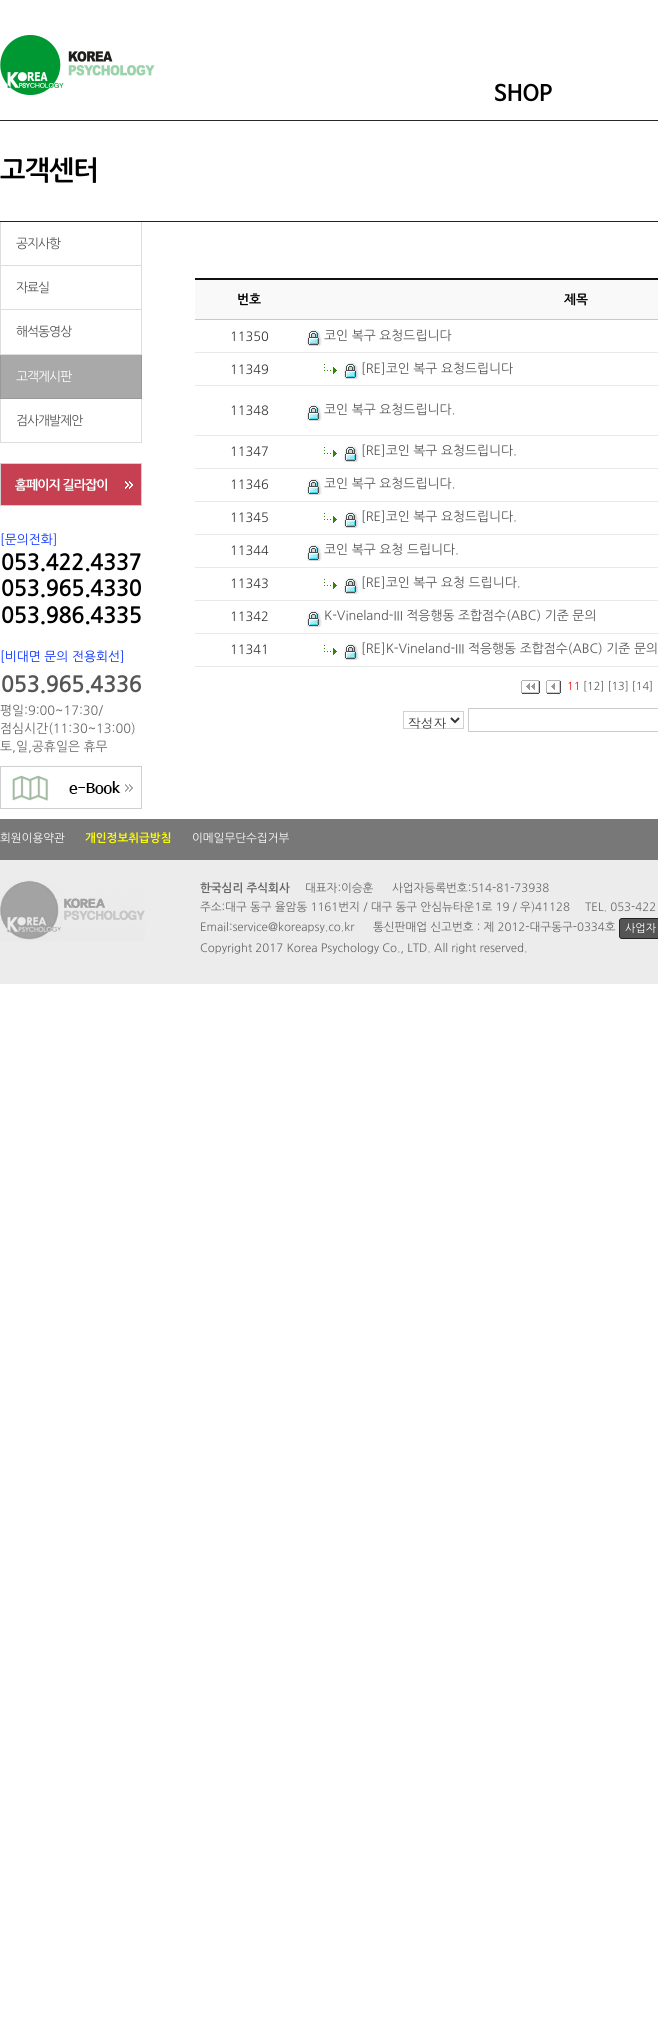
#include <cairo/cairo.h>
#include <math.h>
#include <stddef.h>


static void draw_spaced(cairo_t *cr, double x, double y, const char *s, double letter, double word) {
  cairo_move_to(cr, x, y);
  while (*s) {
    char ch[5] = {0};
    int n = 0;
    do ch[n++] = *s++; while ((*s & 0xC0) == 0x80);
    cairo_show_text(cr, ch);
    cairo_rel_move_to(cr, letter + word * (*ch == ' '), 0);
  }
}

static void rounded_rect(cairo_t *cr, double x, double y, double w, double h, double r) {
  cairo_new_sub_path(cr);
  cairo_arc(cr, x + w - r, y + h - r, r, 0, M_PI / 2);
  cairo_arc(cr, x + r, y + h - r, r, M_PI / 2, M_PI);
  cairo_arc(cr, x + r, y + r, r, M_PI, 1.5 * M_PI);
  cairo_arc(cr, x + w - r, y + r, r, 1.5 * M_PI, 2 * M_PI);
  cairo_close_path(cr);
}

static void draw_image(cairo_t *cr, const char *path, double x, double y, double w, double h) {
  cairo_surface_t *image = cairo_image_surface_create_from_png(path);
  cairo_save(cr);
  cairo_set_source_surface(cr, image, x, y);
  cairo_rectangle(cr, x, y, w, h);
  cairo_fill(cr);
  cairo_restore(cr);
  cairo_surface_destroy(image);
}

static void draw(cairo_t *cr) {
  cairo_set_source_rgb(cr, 1, 1, 1);
  cairo_paint(cr);
  cairo_set_source_rgb(cr, 40 / 255.0, 40 / 255.0, 40 / 255.0);
  cairo_rectangle(cr, 0, 120, 658, 1);
  cairo_fill(cr);
  draw_image(cr, "images/1.png", 0, 35, 155, 60);
  cairo_set_source_rgb(cr, 34 / 255.0, 34 / 255.0, 34 / 255.0);
  cairo_rectangle(cr, 0, 221, 658, 1);
  cairo_fill(cr);
  cairo_set_source_rgb(cr, 221 / 255.0, 221 / 255.0, 221 / 255.0);
  cairo_rectangle(cr, 141, 222, 1, 133);
  cairo_fill(cr);
  cairo_rectangle(cr, 0, 265, 142, 1);
  cairo_fill(cr);
  cairo_rectangle(cr, 0, 222, 1, 44);
  cairo_fill(cr);
  cairo_rectangle(cr, 0, 309, 142, 1);
  cairo_fill(cr);
  cairo_rectangle(cr, 0, 266, 1, 44);
  cairo_fill(cr);
  cairo_rectangle(cr, 0, 354, 142, 1);
  cairo_fill(cr);
  cairo_rectangle(cr, 0, 310, 1, 45);
  cairo_fill(cr);
  cairo_set_source_rgb(cr, 169 / 255.0, 169 / 255.0, 169 / 255.0);
  cairo_rectangle(cr, 1, 355, 140, 43);
  cairo_fill(cr);
  cairo_set_source_rgb(cr, 153 / 255.0, 153 / 255.0, 153 / 255.0);
  cairo_rectangle(cr, 141, 355, 1, 44);
  cairo_fill(cr);
  cairo_rectangle(cr, 0, 398, 142, 1);
  cairo_fill(cr);
  cairo_rectangle(cr, 0, 355, 1, 44);
  cairo_fill(cr);
  cairo_set_source_rgb(cr, 221 / 255.0, 221 / 255.0, 221 / 255.0);
  cairo_rectangle(cr, 141, 399, 1, 44);
  cairo_fill(cr);
  cairo_rectangle(cr, 0, 442, 142, 1);
  cairo_fill(cr);
  cairo_rectangle(cr, 0, 399, 1, 44);
  cairo_fill(cr);
  draw_image(cr, "images/2.png", 0, 463, 142, 43);
  draw_image(cr, "images/3.png", 0, 766, 142, 43);
  cairo_set_source_rgb(cr, 17 / 255.0, 17 / 255.0, 17 / 255.0);
  cairo_rectangle(cr, 195, 278, 463, 2);
  cairo_fill(cr);
  cairo_set_source_rgb(cr, 249 / 255.0, 249 / 255.0, 249 / 255.0);
  cairo_rectangle(cr, 195, 280, 463, 39);
  cairo_fill(cr);
  cairo_set_source_rgb(cr, 201 / 255.0, 201 / 255.0, 201 / 255.0);
  cairo_rectangle(cr, 195, 319, 463, 1);
  cairo_fill(cr);
  draw_image(cr, "images/4.png", 306, 329, 16, 17);
  cairo_set_source_rgb(cr, 233 / 255.0, 233 / 255.0, 233 / 255.0);
  cairo_rectangle(cr, 195, 352, 463, 1);
  cairo_fill(cr);
  draw_image(cr, "images/5.png", 324, 364, 13, 10);
  draw_image(cr, "images/4.png", 343, 362, 16, 17);
  cairo_rectangle(cr, 195, 385, 463, 1);
  cairo_fill(cr);
  draw_image(cr, "images/4.png", 306, 404, 16, 17);
  cairo_rectangle(cr, 195, 435, 463, 1);
  cairo_fill(cr);
  draw_image(cr, "images/5.png", 324, 447, 13, 10);
  draw_image(cr, "images/4.png", 343, 445, 16, 17);
  cairo_rectangle(cr, 195, 468, 463, 1);
  cairo_fill(cr);
  draw_image(cr, "images/4.png", 306, 478, 16, 17);
  cairo_rectangle(cr, 195, 501, 463, 1);
  cairo_fill(cr);
  draw_image(cr, "images/5.png", 324, 513, 13, 10);
  draw_image(cr, "images/4.png", 343, 511, 16, 17);
  cairo_rectangle(cr, 195, 534, 463, 1);
  cairo_fill(cr);
  draw_image(cr, "images/4.png", 306, 544, 16, 17);
  cairo_rectangle(cr, 195, 567, 463, 1);
  cairo_fill(cr);
  draw_image(cr, "images/5.png", 324, 579, 13, 10);
  draw_image(cr, "images/4.png", 343, 577, 16, 17);
  cairo_rectangle(cr, 195, 600, 463, 1);
  cairo_fill(cr);
  draw_image(cr, "images/4.png", 306, 610, 16, 17);
  cairo_rectangle(cr, 195, 633, 463, 1);
  cairo_fill(cr);
  draw_image(cr, "images/5.png", 324, 645, 13, 10);
  draw_image(cr, "images/4.png", 343, 643, 16, 17);
  cairo_rectangle(cr, 195, 666, 463, 1);
  cairo_fill(cr);
  draw_image(cr, "images/6.png", 521, 680, 19, 14);
  draw_image(cr, "images/7.png", 546, 680, 15, 14);
  cairo_rectangle(cr, 403.5, 711.5, 60, 17);
  cairo_set_source_rgb(cr, 210 / 255.0, 210 / 255.0, 210 / 255.0);
  cairo_set_line_width(cr, 1);
  cairo_stroke(cr);
  cairo_new_path(cr);
  cairo_move_to(cr, 451, 718);
  cairo_line_to(cr, 455, 722);
  cairo_line_to(cr, 459, 718);
  cairo_set_source_rgb(cr, 51 / 255.0, 51 / 255.0, 51 / 255.0);
  cairo_set_line_width(cr, 2);
  cairo_stroke(cr);
  cairo_rectangle(cr, 468.5, 708.5, 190, 23);
  cairo_set_source_rgb(cr, 204 / 255.0, 204 / 255.0, 204 / 255.0);
  cairo_set_line_width(cr, 1);
  cairo_stroke(cr);
  cairo_set_source_rgb(cr, 236 / 255.0, 236 / 255.0, 236 / 255.0);
  cairo_rectangle(cr, 0, 860, 658, 124);
  cairo_fill(cr);
  cairo_set_source_rgb(cr, 120 / 255.0, 120 / 255.0, 120 / 255.0);
  cairo_rectangle(cr, 0, 819, 658, 41);
  cairo_fill(cr);
  draw_image(cr, "images/8.png", 0, 880, 145, 61);
  cairo_set_source_rgb(cr, 85 / 255.0, 85 / 255.0, 85 / 255.0);
  rounded_rect(cr, 619.5, 918.5, 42, 20, 2.5);
  cairo_fill_preserve(cr);
  cairo_set_source_rgb(cr, 34 / 255.0, 34 / 255.0, 34 / 255.0);
  cairo_stroke(cr);
  cairo_select_font_face(cr, "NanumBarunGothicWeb", CAIRO_FONT_SLANT_NORMAL, CAIRO_FONT_WEIGHT_BOLD);
  cairo_set_font_size(cr, 22);
  cairo_set_source_rgb(cr, 0, 0, 0);
  cairo_move_to(cr, 494, 100);
  cairo_show_text(cr, "SHOP");
  cairo_select_font_face(cr, "NanumGothic", CAIRO_FONT_SLANT_NORMAL, CAIRO_FONT_WEIGHT_BOLD);
  cairo_set_font_size(cr, 27);
  draw_spaced(cr, 0, 180, "고객센터", -1, 0);
  cairo_select_font_face(cr, "NanumGothic", CAIRO_FONT_SLANT_NORMAL, CAIRO_FONT_WEIGHT_NORMAL);
  cairo_set_font_size(cr, 12.8);
  cairo_set_source_rgb(cr, 85 / 255.0, 85 / 255.0, 85 / 255.0);
  draw_spaced(cr, 16, 248, "공지사항", -1, 0);
  draw_spaced(cr, 16, 292, "자료실", -1, 0);
  draw_spaced(cr, 16, 336, "해석동영상", -1, 0);
  cairo_set_source_rgb(cr, 1, 1, 1);
  draw_spaced(cr, 16, 381, "고객게시판", -1, 0);
  cairo_set_source_rgb(cr, 85 / 255.0, 85 / 255.0, 85 / 255.0);
  draw_spaced(cr, 16, 425, "검사개발제안", -1, 0);
  cairo_set_source_rgb(cr, 8 / 255.0, 48 / 255.0, 1);
  cairo_move_to(cr, 0, 544);
  cairo_show_text(cr, "[문의전화]");
  cairo_select_font_face(cr, "NanumGothic", CAIRO_FONT_SLANT_NORMAL, CAIRO_FONT_WEIGHT_BOLD);
  cairo_set_font_size(cr, 22);
  cairo_set_source_rgb(cr, 0, 0, 0);
  draw_spaced(cr, 1, 570, "053.422.4337", -0.5, 0);
  draw_spaced(cr, 1, 596, "053.965.4330", -0.5, 0);
  draw_spaced(cr, 1, 623, "053.986.4335", -0.5, 0);
  cairo_select_font_face(cr, "NanumGothic", CAIRO_FONT_SLANT_NORMAL, CAIRO_FONT_WEIGHT_NORMAL);
  cairo_set_font_size(cr, 12.8);
  cairo_set_source_rgb(cr, 8 / 255.0, 48 / 255.0, 1);
  cairo_move_to(cr, 0, 661);
  cairo_show_text(cr, "[비대면 문의 전용회선]");
  cairo_select_font_face(cr, "NanumGothic", CAIRO_FONT_SLANT_NORMAL, CAIRO_FONT_WEIGHT_BOLD);
  cairo_set_font_size(cr, 22);
  cairo_set_source_rgb(cr, 85 / 255.0, 85 / 255.0, 85 / 255.0);
  draw_spaced(cr, 1, 692, "053.965.4336", -0.5, 0);
  cairo_select_font_face(cr, "NanumGothic", CAIRO_FONT_SLANT_NORMAL, CAIRO_FONT_WEIGHT_NORMAL);
  cairo_set_font_size(cr, 12.8);
  cairo_set_source_rgb(cr, 102 / 255.0, 102 / 255.0, 102 / 255.0);
  cairo_move_to(cr, 0, 715);
  cairo_show_text(cr, "평일:9:00~17:30/");
  cairo_move_to(cr, 0, 733);
  cairo_show_text(cr, "점심시간(11:30~13:00)");
  cairo_move_to(cr, 0, 751);
  cairo_show_text(cr, "토,일,공휴일은 휴무");
  cairo_select_font_face(cr, "NanumGothic", CAIRO_FONT_SLANT_NORMAL, CAIRO_FONT_WEIGHT_BOLD);
  cairo_set_source_rgb(cr, 0, 0, 0);
  cairo_move_to(cr, 237, 304);
  cairo_show_text(cr, "번호");
  cairo_move_to(cr, 564, 304);
  cairo_show_text(cr, "제목");
  cairo_select_font_face(cr, "NanumGothic", CAIRO_FONT_SLANT_NORMAL, CAIRO_FONT_WEIGHT_NORMAL);
  cairo_set_source_rgb(cr, 51 / 255.0, 51 / 255.0, 51 / 255.0);
  cairo_move_to(cr, 230, 341);
  cairo_show_text(cr, "11350");
  cairo_set_source_rgb(cr, 85 / 255.0, 85 / 255.0, 85 / 255.0);
  cairo_move_to(cr, 324, 340);
  cairo_show_text(cr, "코인 복구 요청드립니다");
  cairo_set_source_rgb(cr, 51 / 255.0, 51 / 255.0, 51 / 255.0);
  cairo_move_to(cr, 230, 374);
  cairo_show_text(cr, "11349");
  cairo_set_source_rgb(cr, 85 / 255.0, 85 / 255.0, 85 / 255.0);
  cairo_move_to(cr, 361, 373);
  cairo_show_text(cr, "[RE]코인 복구 요청드립니다");
  cairo_set_source_rgb(cr, 51 / 255.0, 51 / 255.0, 51 / 255.0);
  cairo_move_to(cr, 230, 415);
  cairo_show_text(cr, "11348");
  cairo_set_source_rgb(cr, 85 / 255.0, 85 / 255.0, 85 / 255.0);
  cairo_move_to(cr, 324, 414);
  cairo_show_text(cr, "코인 복구 요청드립니다.");
  cairo_set_source_rgb(cr, 51 / 255.0, 51 / 255.0, 51 / 255.0);
  cairo_move_to(cr, 230, 456);
  cairo_show_text(cr, "11347");
  cairo_set_source_rgb(cr, 85 / 255.0, 85 / 255.0, 85 / 255.0);
  cairo_move_to(cr, 361, 455);
  cairo_show_text(cr, "[RE]코인 복구 요청드립니다.");
  cairo_set_source_rgb(cr, 51 / 255.0, 51 / 255.0, 51 / 255.0);
  cairo_move_to(cr, 230, 489);
  cairo_show_text(cr, "11346");
  cairo_set_source_rgb(cr, 85 / 255.0, 85 / 255.0, 85 / 255.0);
  cairo_move_to(cr, 324, 488);
  cairo_show_text(cr, "코인 복구 요청드립니다.");
  cairo_set_source_rgb(cr, 51 / 255.0, 51 / 255.0, 51 / 255.0);
  cairo_move_to(cr, 230, 522);
  cairo_show_text(cr, "11345");
  cairo_set_source_rgb(cr, 85 / 255.0, 85 / 255.0, 85 / 255.0);
  cairo_move_to(cr, 361, 521);
  cairo_show_text(cr, "[RE]코인 복구 요청드립니다.");
  cairo_set_source_rgb(cr, 51 / 255.0, 51 / 255.0, 51 / 255.0);
  cairo_move_to(cr, 230, 555);
  cairo_show_text(cr, "11344");
  cairo_set_source_rgb(cr, 85 / 255.0, 85 / 255.0, 85 / 255.0);
  cairo_move_to(cr, 324, 554);
  cairo_show_text(cr, "코인 복구 요청 드립니다.");
  cairo_set_source_rgb(cr, 51 / 255.0, 51 / 255.0, 51 / 255.0);
  cairo_move_to(cr, 230, 588);
  cairo_show_text(cr, "11343");
  cairo_set_source_rgb(cr, 85 / 255.0, 85 / 255.0, 85 / 255.0);
  cairo_move_to(cr, 361, 587);
  cairo_show_text(cr, "[RE]코인 복구 요청 드립니다.");
  cairo_set_source_rgb(cr, 51 / 255.0, 51 / 255.0, 51 / 255.0);
  cairo_move_to(cr, 230, 621);
  cairo_show_text(cr, "11342");
  cairo_set_source_rgb(cr, 85 / 255.0, 85 / 255.0, 85 / 255.0);
  cairo_move_to(cr, 324, 620);
  cairo_show_text(cr, "K-Vineland-III 적응행동 조합점수(ABC) 기준 문의");
  cairo_set_source_rgb(cr, 51 / 255.0, 51 / 255.0, 51 / 255.0);
  cairo_move_to(cr, 230, 654);
  cairo_show_text(cr, "11341");
  cairo_set_source_rgb(cr, 85 / 255.0, 85 / 255.0, 85 / 255.0);
  cairo_move_to(cr, 361, 653);
  cairo_show_text(cr, "[RE]K-Vineland-III 적응행동 조합점수(ABC) 기준 문의");
  cairo_set_font_size(cr, 11);
  cairo_set_source_rgb(cr, 1, 0, 0);
  cairo_move_to(cr, 567, 690);
  cairo_show_text(cr, "11");
  cairo_set_source_rgb(cr, 85 / 255.0, 85 / 255.0, 85 / 255.0);
  cairo_move_to(cr, 583, 690);
  cairo_show_text(cr, "[12] [13] [14]");
  cairo_select_font_face(cr, "Dotum", CAIRO_FONT_SLANT_NORMAL, CAIRO_FONT_WEIGHT_NORMAL);
  cairo_set_font_size(cr, 12.8);
  cairo_set_source_rgb(cr, 51 / 255.0, 51 / 255.0, 51 / 255.0);
  cairo_move_to(cr, 408, 728);
  cairo_show_text(cr, "작성자");
  cairo_select_font_face(cr, "NanumGothic", CAIRO_FONT_SLANT_NORMAL, CAIRO_FONT_WEIGHT_NORMAL);
  cairo_set_font_size(cr, 11.5);
  cairo_set_source_rgb(cr, 1, 1, 1);
  cairo_move_to(cr, 0, 842);
  cairo_show_text(cr, "회원이용약관");
  cairo_select_font_face(cr, "NanumGothic", CAIRO_FONT_SLANT_NORMAL, CAIRO_FONT_WEIGHT_BOLD);
  cairo_set_source_rgb(cr, 1, 1, 0);
  cairo_move_to(cr, 85, 842);
  cairo_show_text(cr, "개인정보취급방침");
  cairo_select_font_face(cr, "NanumGothic", CAIRO_FONT_SLANT_NORMAL, CAIRO_FONT_WEIGHT_NORMAL);
  cairo_set_source_rgb(cr, 1, 1, 1);
  cairo_move_to(cr, 192, 842);
  cairo_show_text(cr, "이메일무단수집거부");
  cairo_select_font_face(cr, "NanumGothic", CAIRO_FONT_SLANT_NORMAL, CAIRO_FONT_WEIGHT_BOLD);
  cairo_set_source_rgb(cr, 102 / 255.0, 102 / 255.0, 102 / 255.0);
  cairo_move_to(cr, 200, 892);
  cairo_show_text(cr, "한국심리 주식회사");
  cairo_select_font_face(cr, "NanumGothic", CAIRO_FONT_SLANT_NORMAL, CAIRO_FONT_WEIGHT_NORMAL);
  cairo_move_to(cr, 305, 892);
  cairo_show_text(cr, "대표자:이승훈");
  cairo_move_to(cr, 392, 892);
  cairo_show_text(cr, "사업자등록번호:514-81-73938");
  cairo_move_to(cr, 200, 911);
  cairo_show_text(cr, "주소:대구 동구 율암동 1161번지 / 대구 동구 안심뉴타운1로 19 / 우)41128");
  cairo_move_to(cr, 585, 911);
  cairo_show_text(cr, "TEL. 053-422");
  cairo_move_to(cr, 200, 931);
  cairo_show_text(cr, "Email:service@koreapsy.co.kr");
  cairo_move_to(cr, 373, 931);
  cairo_show_text(cr, "통신판매업 신고번호 : 제 2012-대구동구-0334호");
  cairo_set_font_size(cr, 11);
  cairo_set_source_rgb(cr, 1, 1, 1);
  cairo_move_to(cr, 625, 932);
  cairo_show_text(cr, "사업자");
  cairo_set_font_size(cr, 11.5);
  cairo_set_source_rgb(cr, 102 / 255.0, 102 / 255.0, 102 / 255.0);
  cairo_move_to(cr, 200, 952);
  cairo_show_text(cr, "Copyright 2017 Korea Psychology Co., LTD. All right reserved.");
}

int main(void) {
  cairo_surface_t *surface = cairo_image_surface_create(CAIRO_FORMAT_RGB24, 658, 2038);
  cairo_t *cr = cairo_create(surface);
  cairo_font_options_t *options = cairo_font_options_create();
  cairo_font_options_set_hint_metrics(options, CAIRO_HINT_METRICS_OFF);
  cairo_font_options_set_hint_style(options, CAIRO_HINT_STYLE_NONE);
  cairo_set_font_options(cr, options);
  cairo_set_miter_limit(cr, 4);
  draw(cr);
  cairo_surface_write_to_png(surface, "out.png");
  cairo_font_options_destroy(options);
  cairo_destroy(cr);
  cairo_surface_destroy(surface);
  return 0;
}
